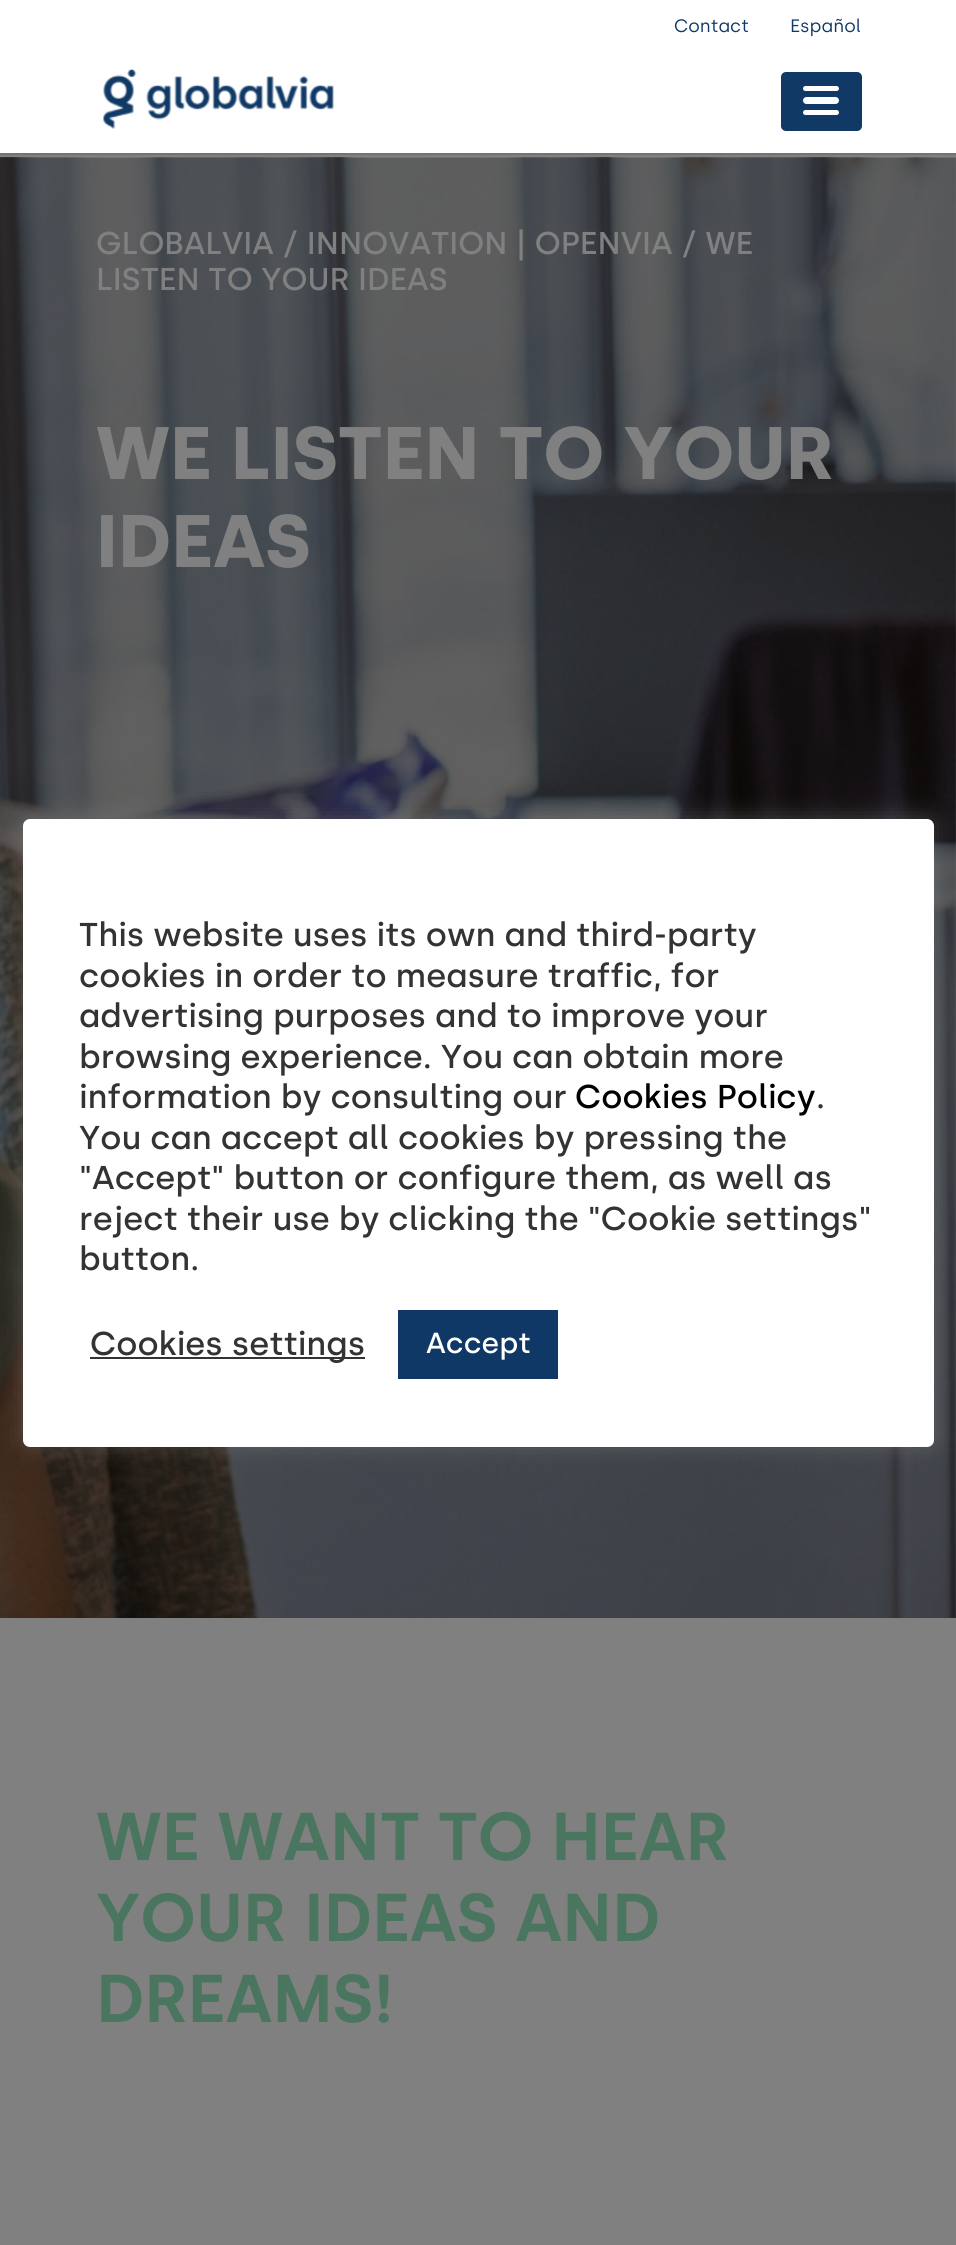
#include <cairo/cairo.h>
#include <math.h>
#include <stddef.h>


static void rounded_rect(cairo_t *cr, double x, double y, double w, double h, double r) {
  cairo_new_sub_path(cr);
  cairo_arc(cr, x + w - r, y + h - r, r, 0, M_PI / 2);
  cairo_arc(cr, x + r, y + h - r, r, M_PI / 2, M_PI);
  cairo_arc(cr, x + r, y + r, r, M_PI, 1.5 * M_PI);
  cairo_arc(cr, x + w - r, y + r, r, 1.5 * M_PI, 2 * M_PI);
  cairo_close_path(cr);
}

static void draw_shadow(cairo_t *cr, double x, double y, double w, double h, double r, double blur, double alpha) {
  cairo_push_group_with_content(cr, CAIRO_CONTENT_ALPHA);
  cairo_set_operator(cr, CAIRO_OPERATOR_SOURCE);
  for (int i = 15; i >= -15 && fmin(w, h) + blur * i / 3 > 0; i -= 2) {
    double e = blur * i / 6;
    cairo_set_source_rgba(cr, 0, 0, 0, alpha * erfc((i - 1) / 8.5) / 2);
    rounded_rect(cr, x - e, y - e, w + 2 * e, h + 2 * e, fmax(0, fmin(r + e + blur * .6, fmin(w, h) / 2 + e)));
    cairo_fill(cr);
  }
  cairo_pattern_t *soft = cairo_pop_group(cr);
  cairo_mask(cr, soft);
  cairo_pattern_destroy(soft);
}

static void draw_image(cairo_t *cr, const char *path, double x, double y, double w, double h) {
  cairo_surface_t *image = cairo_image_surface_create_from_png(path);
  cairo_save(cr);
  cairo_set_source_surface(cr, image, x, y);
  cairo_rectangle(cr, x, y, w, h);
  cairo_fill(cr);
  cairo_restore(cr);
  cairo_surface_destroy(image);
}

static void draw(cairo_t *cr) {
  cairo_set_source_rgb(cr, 128 / 255.0, 128 / 255.0, 128 / 255.0);
  cairo_paint(cr);
  cairo_set_source_rgb(cr, 115 / 255.0, 115 / 255.0, 115 / 255.0);
  cairo_rectangle(cr, 0, 153, 956, 2);
  cairo_fill(cr);
  cairo_set_source_rgb(cr, 1, 1, 1);
  cairo_rectangle(cr, 0, 0, 956, 153);
  cairo_fill(cr);
  draw_image(cr, "images/1.png", 103, 69, 231, 60);
  cairo_set_source_rgb(cr, 16 / 255.0, 57 / 255.0, 102 / 255.0);
  rounded_rect(cr, 781, 72, 81, 59, 5);
  cairo_fill(cr);
  cairo_set_source_rgb(cr, 1, 1, 1);
  rounded_rect(cr, 803, 86, 36, 5, 2.5);
  cairo_fill(cr);
  rounded_rect(cr, 803, 97, 36, 7, 3.5);
  cairo_fill(cr);
  rounded_rect(cr, 803, 110, 36, 5, 2.5);
  cairo_fill(cr);
  draw_image(cr, "images/2.png", 0, 157, 956, 1461);
  cairo_set_source_rgb(cr, 172 / 255.0, 171 / 255.0, 171 / 255.0);
  draw_shadow(cr, 23, 817, 911, 628, 7, 11, 0.3);
  cairo_set_source_rgb(cr, 1, 1, 1);
  rounded_rect(cr, 23, 819, 911, 628, 7);
  cairo_fill(cr);
  cairo_set_source_rgb(cr, 51 / 255.0, 51 / 255.0, 51 / 255.0);
  cairo_rectangle(cr, 90, 1357, 275, 2);
  cairo_fill(cr);
  cairo_set_source_rgb(cr, 15 / 255.0, 56 / 255.0, 102 / 255.0);
  cairo_rectangle(cr, 398, 1310, 160, 69);
  cairo_fill(cr);
  cairo_select_font_face(cr, "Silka", CAIRO_FONT_SLANT_NORMAL, CAIRO_FONT_WEIGHT_NORMAL);
  cairo_set_font_size(cr, 18);
  cairo_set_source_rgb(cr, 16 / 255.0, 57 / 255.0, 102 / 255.0);
  cairo_move_to(cr, 674, 32);
  cairo_show_text(cr, "Contact");
  cairo_move_to(cr, 790, 32);
  cairo_show_text(cr, "Español");
  cairo_select_font_face(cr, "Silka Medium", CAIRO_FONT_SLANT_NORMAL, CAIRO_FONT_WEIGHT_NORMAL);
  cairo_set_font_size(cr, 31.5);
  cairo_set_source_rgb(cr, 128 / 255.0, 128 / 255.0, 128 / 255.0);
  cairo_move_to(cr, 96, 254);
  cairo_show_text(cr, "GLOBALVIA / INNOVATION | OPENVIA / WE");
  cairo_move_to(cr, 96, 290);
  cairo_show_text(cr, "LISTEN TO YOUR IDEAS");
  cairo_select_font_face(cr, "Silka", CAIRO_FONT_SLANT_NORMAL, CAIRO_FONT_WEIGHT_BOLD);
  cairo_set_font_size(cr, 74.25);
  cairo_move_to(cr, 96, 479);
  cairo_show_text(cr, "WE LISTEN TO YOUR");
  cairo_move_to(cr, 96, 567);
  cairo_show_text(cr, "IDEAS");
  cairo_select_font_face(cr, "Silka SemiBold", CAIRO_FONT_SLANT_NORMAL, CAIRO_FONT_WEIGHT_NORMAL);
  cairo_set_font_size(cr, 67.5);
  cairo_set_source_rgb(cr, 74 / 255.0, 117 / 255.0, 95 / 255.0);
  cairo_move_to(cr, 96, 1860);
  cairo_show_text(cr, "WE WANT TO HEAR");
  cairo_move_to(cr, 96, 1941);
  cairo_show_text(cr, "YOUR IDEAS AND");
  cairo_move_to(cr, 96, 2022);
  cairo_show_text(cr, "DREAMS!");
  cairo_select_font_face(cr, "Silka Medium", CAIRO_FONT_SLANT_NORMAL, CAIRO_FONT_WEIGHT_NORMAL);
  cairo_set_font_size(cr, 33);
  cairo_set_source_rgb(cr, 51 / 255.0, 51 / 255.0, 51 / 255.0);
  cairo_move_to(cr, 79, 946);
  cairo_show_text(cr, "This website uses its own and third-party");
  cairo_move_to(cr, 79, 987);
  cairo_show_text(cr, "cookies in order to measure traffic, for");
  cairo_move_to(cr, 79, 1027);
  cairo_show_text(cr, "advertising purposes and to improve your");
  cairo_move_to(cr, 79, 1068);
  cairo_show_text(cr, "browsing experience. You can obtain more");
  cairo_move_to(cr, 79, 1108);
  cairo_show_text(cr, "information by consulting our");
  cairo_set_source_rgb(cr, 0, 0, 0);
  cairo_move_to(cr, 575, 1108);
  cairo_show_text(cr, "Cookies Policy");
  cairo_set_source_rgb(cr, 51 / 255.0, 51 / 255.0, 51 / 255.0);
  cairo_move_to(cr, 816, 1108);
  cairo_show_text(cr, ".");
  cairo_move_to(cr, 79, 1149);
  cairo_show_text(cr, "You can accept all cookies by pressing the");
  cairo_move_to(cr, 79, 1189);
  cairo_show_text(cr, "\"Accept\" button or configure them, as well as");
  cairo_move_to(cr, 79, 1230);
  cairo_show_text(cr, "reject their use by clicking the \"Cookie settings\"");
  cairo_move_to(cr, 79, 1270);
  cairo_show_text(cr, "button.");
  cairo_move_to(cr, 90, 1355);
  cairo_show_text(cr, "Cookies settings");
  cairo_set_font_size(cr, 29);
  cairo_set_source_rgb(cr, 1, 1, 1);
  cairo_move_to(cr, 426, 1353);
  cairo_show_text(cr, "Accept");
}

int main(void) {
  cairo_surface_t *surface = cairo_image_surface_create(CAIRO_FORMAT_RGB24, 956, 2245);
  cairo_t *cr = cairo_create(surface);
  cairo_font_options_t *options = cairo_font_options_create();
  cairo_font_options_set_hint_metrics(options, CAIRO_HINT_METRICS_OFF);
  cairo_font_options_set_hint_style(options, CAIRO_HINT_STYLE_NONE);
  cairo_set_font_options(cr, options);
  cairo_set_miter_limit(cr, 4);
  draw(cr);
  cairo_surface_write_to_png(surface, "out.png");
  cairo_font_options_destroy(options);
  cairo_destroy(cr);
  cairo_surface_destroy(surface);
  return 0;
}
